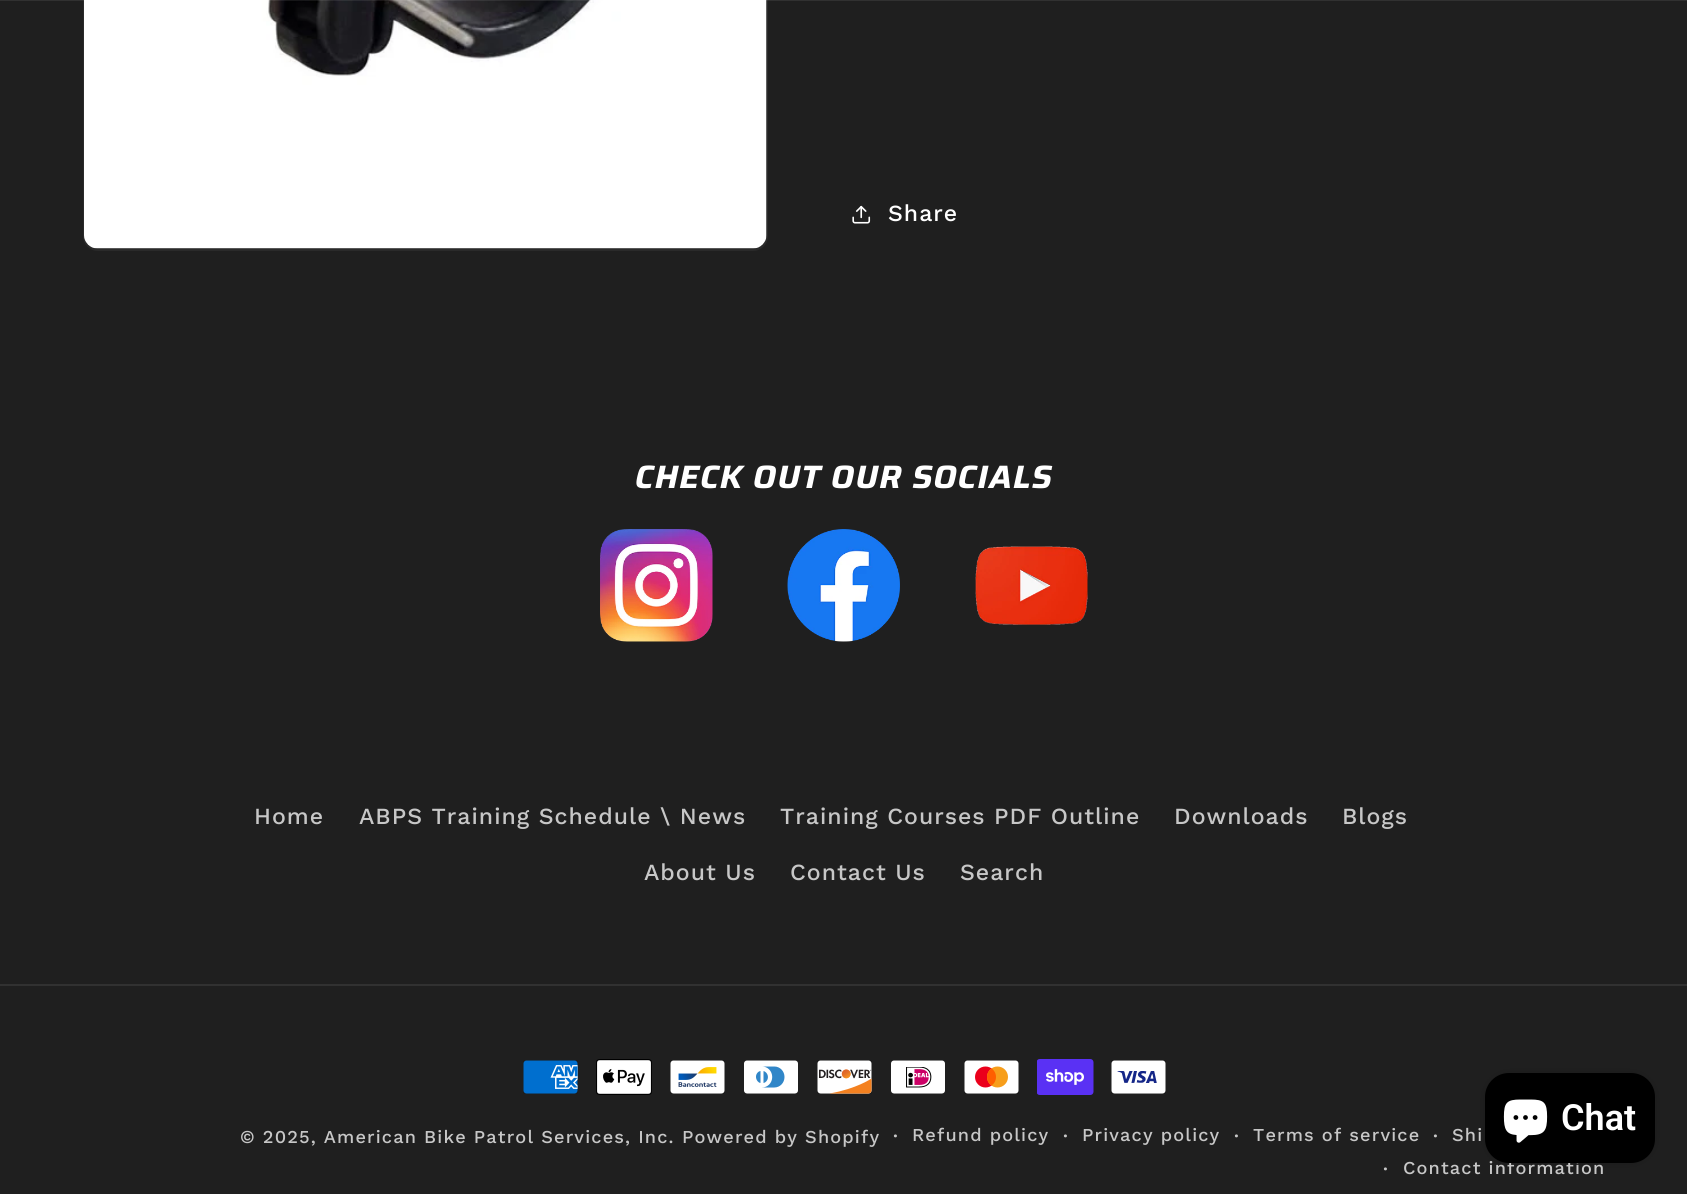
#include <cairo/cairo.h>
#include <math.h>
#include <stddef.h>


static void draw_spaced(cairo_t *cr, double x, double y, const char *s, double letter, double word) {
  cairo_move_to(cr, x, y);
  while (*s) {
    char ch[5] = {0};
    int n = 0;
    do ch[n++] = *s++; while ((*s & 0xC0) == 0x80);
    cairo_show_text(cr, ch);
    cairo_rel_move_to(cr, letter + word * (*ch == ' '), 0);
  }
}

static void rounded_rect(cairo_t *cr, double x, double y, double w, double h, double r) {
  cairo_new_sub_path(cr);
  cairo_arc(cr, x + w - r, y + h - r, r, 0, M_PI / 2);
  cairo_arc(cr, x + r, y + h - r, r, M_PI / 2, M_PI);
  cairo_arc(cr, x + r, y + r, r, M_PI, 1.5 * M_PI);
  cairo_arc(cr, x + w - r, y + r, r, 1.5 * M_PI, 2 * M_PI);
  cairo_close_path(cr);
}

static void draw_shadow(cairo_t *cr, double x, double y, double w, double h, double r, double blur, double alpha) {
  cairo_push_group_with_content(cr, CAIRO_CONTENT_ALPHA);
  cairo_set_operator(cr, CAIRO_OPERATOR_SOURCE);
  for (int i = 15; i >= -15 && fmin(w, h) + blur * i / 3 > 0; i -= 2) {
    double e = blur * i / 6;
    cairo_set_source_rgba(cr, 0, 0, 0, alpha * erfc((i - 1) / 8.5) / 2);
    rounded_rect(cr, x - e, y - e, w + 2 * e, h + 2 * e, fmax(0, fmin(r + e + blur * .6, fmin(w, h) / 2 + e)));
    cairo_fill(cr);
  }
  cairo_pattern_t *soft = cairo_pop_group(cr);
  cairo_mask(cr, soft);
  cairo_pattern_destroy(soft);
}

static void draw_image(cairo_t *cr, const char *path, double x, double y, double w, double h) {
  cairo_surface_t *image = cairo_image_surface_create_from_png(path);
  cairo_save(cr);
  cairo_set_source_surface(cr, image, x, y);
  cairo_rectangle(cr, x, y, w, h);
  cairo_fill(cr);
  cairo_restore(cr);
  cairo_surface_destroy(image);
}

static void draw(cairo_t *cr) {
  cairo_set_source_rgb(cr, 31 / 255.0, 31 / 255.0, 31 / 255.0);
  cairo_paint(cr);
  rounded_rect(cr, 84, -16, 683, 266, 14);
  cairo_set_source_rgb(cr, 42 / 255.0, 42 / 255.0, 42 / 255.0);
  cairo_stroke(cr);
  draw_image(cr, "images/1.png", 84, 0, 683, 249);
  cairo_set_source_rgba(cr, 1, 1, 1, 0.08);
  cairo_rectangle(cr, 0, 0, 1687, 1);
  cairo_fill(cr);
  draw_image(cr, "images/2.png", 852, 205, 19, 19);
  draw_image(cr, "images/3.png", 600, 529, 113, 113);
  draw_image(cr, "images/4.png", 787, 529, 113, 113);
  draw_image(cr, "images/5.png", 975, 546, 113, 79);
  cairo_set_source_rgb(cr, 49 / 255.0, 49 / 255.0, 49 / 255.0);
  cairo_rectangle(cr, 0, 984, 1687, 2);
  cairo_fill(cr);
  draw_image(cr, "images/6.png", 523, 1060, 55, 34);
  draw_image(cr, "images/7.png", 596, 1059, 56, 36);
  draw_image(cr, "images/8.png", 670, 1060, 55, 34);
  draw_image(cr, "images/9.png", 744, 1060, 54, 34);
  draw_image(cr, "images/10.png", 817, 1060, 55, 34);
  draw_image(cr, "images/11.png", 891, 1060, 54, 34);
  draw_image(cr, "images/12.png", 964, 1060, 55, 34);
  draw_image(cr, "images/13.png", 1037, 1059, 57, 36);
  draw_image(cr, "images/14.png", 1111, 1060, 55, 34);
  cairo_set_source_rgb(cr, 0, 0, 0);
  draw_shadow(cr, 1485, 1073, 170, 90, 24, 4, 0.15);
  cairo_select_font_face(cr, "Work Sans Medium", CAIRO_FONT_SLANT_NORMAL, CAIRO_FONT_WEIGHT_NORMAL);
  cairo_set_font_size(cr, 23.1);
  cairo_set_source_rgb(cr, 1, 1, 1);
  draw_spaced(cr, 888, 221, "Share", 1, 0);
  cairo_select_font_face(cr, "Saira", CAIRO_FONT_SLANT_ITALIC, CAIRO_FONT_WEIGHT_BOLD);
  cairo_set_font_size(cr, 32.4);
  draw_spaced(cr, 635, 488, "CHECK OUT OUR SOCIALS", 1.1, 0);
  cairo_select_font_face(cr, "Work Sans Medium", CAIRO_FONT_SLANT_NORMAL, CAIRO_FONT_WEIGHT_NORMAL);
  cairo_set_font_size(cr, 23.1);
  cairo_set_source_rgb(cr, 199 / 255.0, 199 / 255.0, 199 / 255.0);
  draw_spaced(cr, 254, 824, "Home", 1, 0);
  draw_spaced(cr, 359, 824, "ABPS Training Schedule \\ News", 1, 0);
  draw_spaced(cr, 780, 824, "Training Courses PDF Outline", 1, 0);
  draw_spaced(cr, 1174, 824, "Downloads", 1, 0);
  draw_spaced(cr, 1342, 824, "Blogs", 1, 0);
  draw_spaced(cr, 644, 880, "About Us", 1, 0);
  draw_spaced(cr, 790, 880, "Contact Us", 1, 0);
  draw_spaced(cr, 960, 880, "Search", 1, 0);
  cairo_set_font_size(cr, 18.15);
  draw_spaced(cr, 240, 1143, "© 2025, American Bike Patrol Services, Inc.", 1.15, 0);
  draw_spaced(cr, 682, 1143, "Powered by Shopify", 1.15, 0);
  cairo_set_font_size(cr, 20);
  draw_spaced(cr, 893, 1143, "·", 1.15, 0);
  cairo_set_font_size(cr, 18.15);
  draw_spaced(cr, 912, 1141, "Refund policy", 1.15, 0);
  cairo_set_font_size(cr, 20);
  draw_spaced(cr, 1063, 1143, "·", 1.15, 0);
  cairo_set_font_size(cr, 18.15);
  draw_spaced(cr, 1082, 1141, "Privacy policy", 1.15, 0);
  cairo_set_font_size(cr, 20);
  draw_spaced(cr, 1234, 1143, "·", 1.15, 0);
  cairo_set_font_size(cr, 18.15);
  draw_spaced(cr, 1253, 1141, "Terms of service", 1.15, 0);
  cairo_set_font_size(cr, 20);
  draw_spaced(cr, 1433, 1143, "·", 1.15, 0);
  cairo_set_font_size(cr, 18.15);
  draw_spaced(cr, 1452, 1141, "Shi", 1.15, 0);
  cairo_set_font_size(cr, 20);
  draw_spaced(cr, 1383, 1176, "·", 1.15, 0);
  cairo_set_font_size(cr, 18.15);
  draw_spaced(cr, 1403, 1174, "Contact information", 1.15, 0);
  cairo_set_source_rgb(cr, 0, 0, 0);
  rounded_rect(cr, 1485, 1073, 170, 90, 24);
  cairo_fill(cr);
  draw_image(cr, "images/15.png", 1503, 1099, 45, 44);
  cairo_select_font_face(cr, "Roboto SemiBold", CAIRO_FONT_SLANT_NORMAL, CAIRO_FONT_WEIGHT_NORMAL);
  cairo_set_font_size(cr, 36);
  cairo_set_source_rgb(cr, 1, 1, 1);
  cairo_move_to(cr, 1561, 1130);
  cairo_show_text(cr, "Chat");
}

int main(void) {
  cairo_surface_t *surface = cairo_image_surface_create(CAIRO_FORMAT_RGB24, 1687, 1194);
  cairo_t *cr = cairo_create(surface);
  cairo_font_options_t *options = cairo_font_options_create();
  cairo_font_options_set_hint_metrics(options, CAIRO_HINT_METRICS_OFF);
  cairo_font_options_set_hint_style(options, CAIRO_HINT_STYLE_NONE);
  cairo_set_font_options(cr, options);
  cairo_set_miter_limit(cr, 4);
  draw(cr);
  cairo_surface_write_to_png(surface, "out.png");
  cairo_font_options_destroy(options);
  cairo_destroy(cr);
  cairo_surface_destroy(surface);
  return 0;
}
